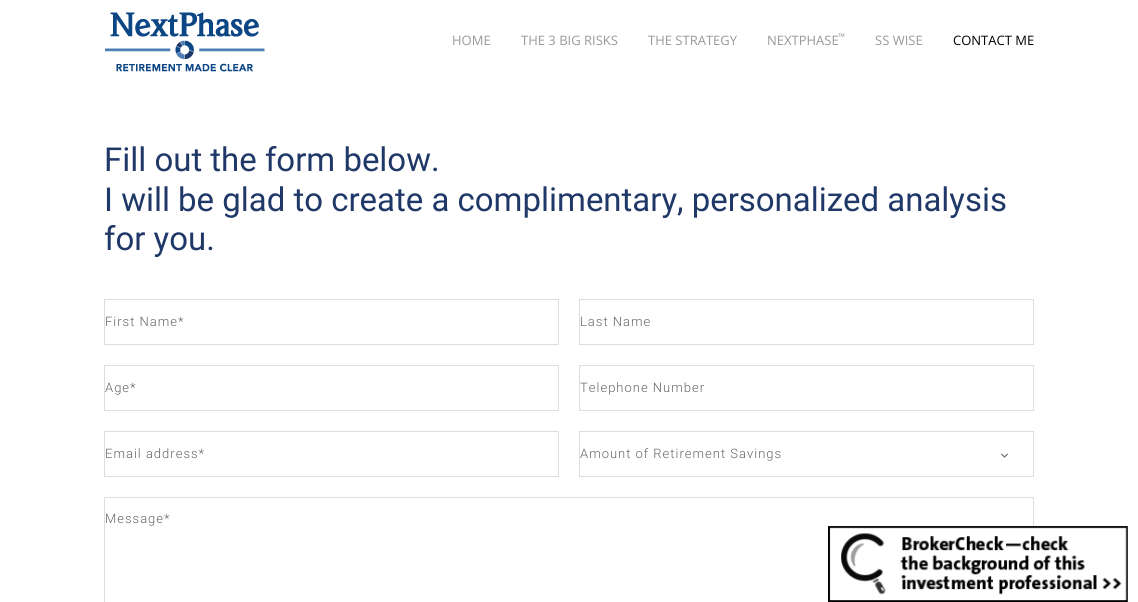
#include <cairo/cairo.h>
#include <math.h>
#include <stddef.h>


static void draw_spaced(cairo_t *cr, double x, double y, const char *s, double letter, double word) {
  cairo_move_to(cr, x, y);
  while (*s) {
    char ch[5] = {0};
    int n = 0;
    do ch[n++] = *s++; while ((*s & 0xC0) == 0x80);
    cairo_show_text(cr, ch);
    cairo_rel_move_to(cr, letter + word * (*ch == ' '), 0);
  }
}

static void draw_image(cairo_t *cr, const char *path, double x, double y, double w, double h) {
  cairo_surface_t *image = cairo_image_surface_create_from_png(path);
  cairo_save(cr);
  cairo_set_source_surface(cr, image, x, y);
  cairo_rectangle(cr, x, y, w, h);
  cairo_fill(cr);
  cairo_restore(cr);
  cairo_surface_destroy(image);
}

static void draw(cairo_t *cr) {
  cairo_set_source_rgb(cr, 1, 1, 1);
  cairo_paint(cr);
  draw_image(cr, "images/1.png", 105, 12, 160, 60);
  cairo_rectangle(cr, 104.5, 299.5, 454, 45);
  cairo_set_source_rgb(cr, 221 / 255.0, 221 / 255.0, 221 / 255.0);
  cairo_set_line_width(cr, 1);
  cairo_stroke(cr);
  cairo_rectangle(cr, 579.5, 299.5, 454, 45);
  cairo_stroke(cr);
  cairo_rectangle(cr, 104.5, 365.5, 454, 45);
  cairo_stroke(cr);
  cairo_rectangle(cr, 579.5, 365.5, 454, 45);
  cairo_stroke(cr);
  cairo_rectangle(cr, 104.5, 431.5, 454, 45);
  cairo_stroke(cr);
  cairo_rectangle(cr, 579.5, 431.5, 454, 45);
  cairo_stroke(cr);
  draw_image(cr, "images/2.png", 1001, 453, 7, 5);
  cairo_rectangle(cr, 104.5, 497.5, 929, 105);
  cairo_stroke(cr);
  draw_image(cr, "images/3.png", 828, 526, 300, 76);
  cairo_select_font_face(cr, "Open Sans", CAIRO_FONT_SLANT_NORMAL, CAIRO_FONT_WEIGHT_NORMAL);
  cairo_set_font_size(cr, 13);
  cairo_set_source_rgb(cr, 153 / 255.0, 153 / 255.0, 153 / 255.0);
  cairo_move_to(cr, 452, 45);
  cairo_show_text(cr, "HOME");
  cairo_move_to(cr, 521, 45);
  cairo_show_text(cr, "THE 3 BIG RISKS");
  cairo_move_to(cr, 648, 45);
  cairo_show_text(cr, "THE STRATEGY");
  cairo_move_to(cr, 767, 45);
  cairo_show_text(cr, "NEXTPHASE");
  cairo_set_font_size(cr, 9);
  cairo_move_to(cr, 838, 40);
  cairo_show_text(cr, "™");
  cairo_set_font_size(cr, 13);
  cairo_move_to(cr, 875, 45);
  cairo_show_text(cr, "SS WISE");
  cairo_set_source_rgb(cr, 0, 0, 0);
  cairo_move_to(cr, 953, 45);
  cairo_show_text(cr, "CONTACT ME");
  cairo_select_font_face(cr, "Roboto", CAIRO_FONT_SLANT_NORMAL, CAIRO_FONT_WEIGHT_NORMAL);
  cairo_set_font_size(cr, 32.95);
  cairo_set_source_rgb(cr, 31 / 255.0, 56 / 255.0, 104 / 255.0);
  cairo_move_to(cr, 104, 171);
  cairo_show_text(cr, "Fill out the form below.");
  cairo_move_to(cr, 104, 211);
  cairo_show_text(cr, "I will be glad to create a complimentary, personalized analysis");
  cairo_move_to(cr, 104, 250);
  cairo_show_text(cr, "for you.");
  cairo_select_font_face(cr, "Roboto Light", CAIRO_FONT_SLANT_NORMAL, CAIRO_FONT_WEIGHT_NORMAL);
  cairo_set_font_size(cr, 13);
  cairo_set_source_rgb(cr, 102 / 255.0, 102 / 255.0, 102 / 255.0);
  draw_spaced(cr, 105, 326, "First Name*", 1, 0);
  draw_spaced(cr, 580, 326, "Last Name", 1, 0);
  draw_spaced(cr, 105, 392, "Age*", 1, 0);
  draw_spaced(cr, 580, 392, "Telephone Number", 1, 0);
  draw_spaced(cr, 105, 458, "Email address*", 1, 0);
  draw_spaced(cr, 580, 458, "Amount of Retirement Savings", 1, 0);
  draw_spaced(cr, 105, 523, "Message*", 1, 0);
}

int main(void) {
  cairo_surface_t *surface = cairo_image_surface_create(CAIRO_FORMAT_RGB24, 1138, 602);
  cairo_t *cr = cairo_create(surface);
  cairo_font_options_t *options = cairo_font_options_create();
  cairo_font_options_set_hint_metrics(options, CAIRO_HINT_METRICS_OFF);
  cairo_font_options_set_hint_style(options, CAIRO_HINT_STYLE_NONE);
  cairo_set_font_options(cr, options);
  cairo_set_miter_limit(cr, 4);
  draw(cr);
  cairo_surface_write_to_png(surface, "out.png");
  cairo_font_options_destroy(options);
  cairo_destroy(cr);
  cairo_surface_destroy(surface);
  return 0;
}
